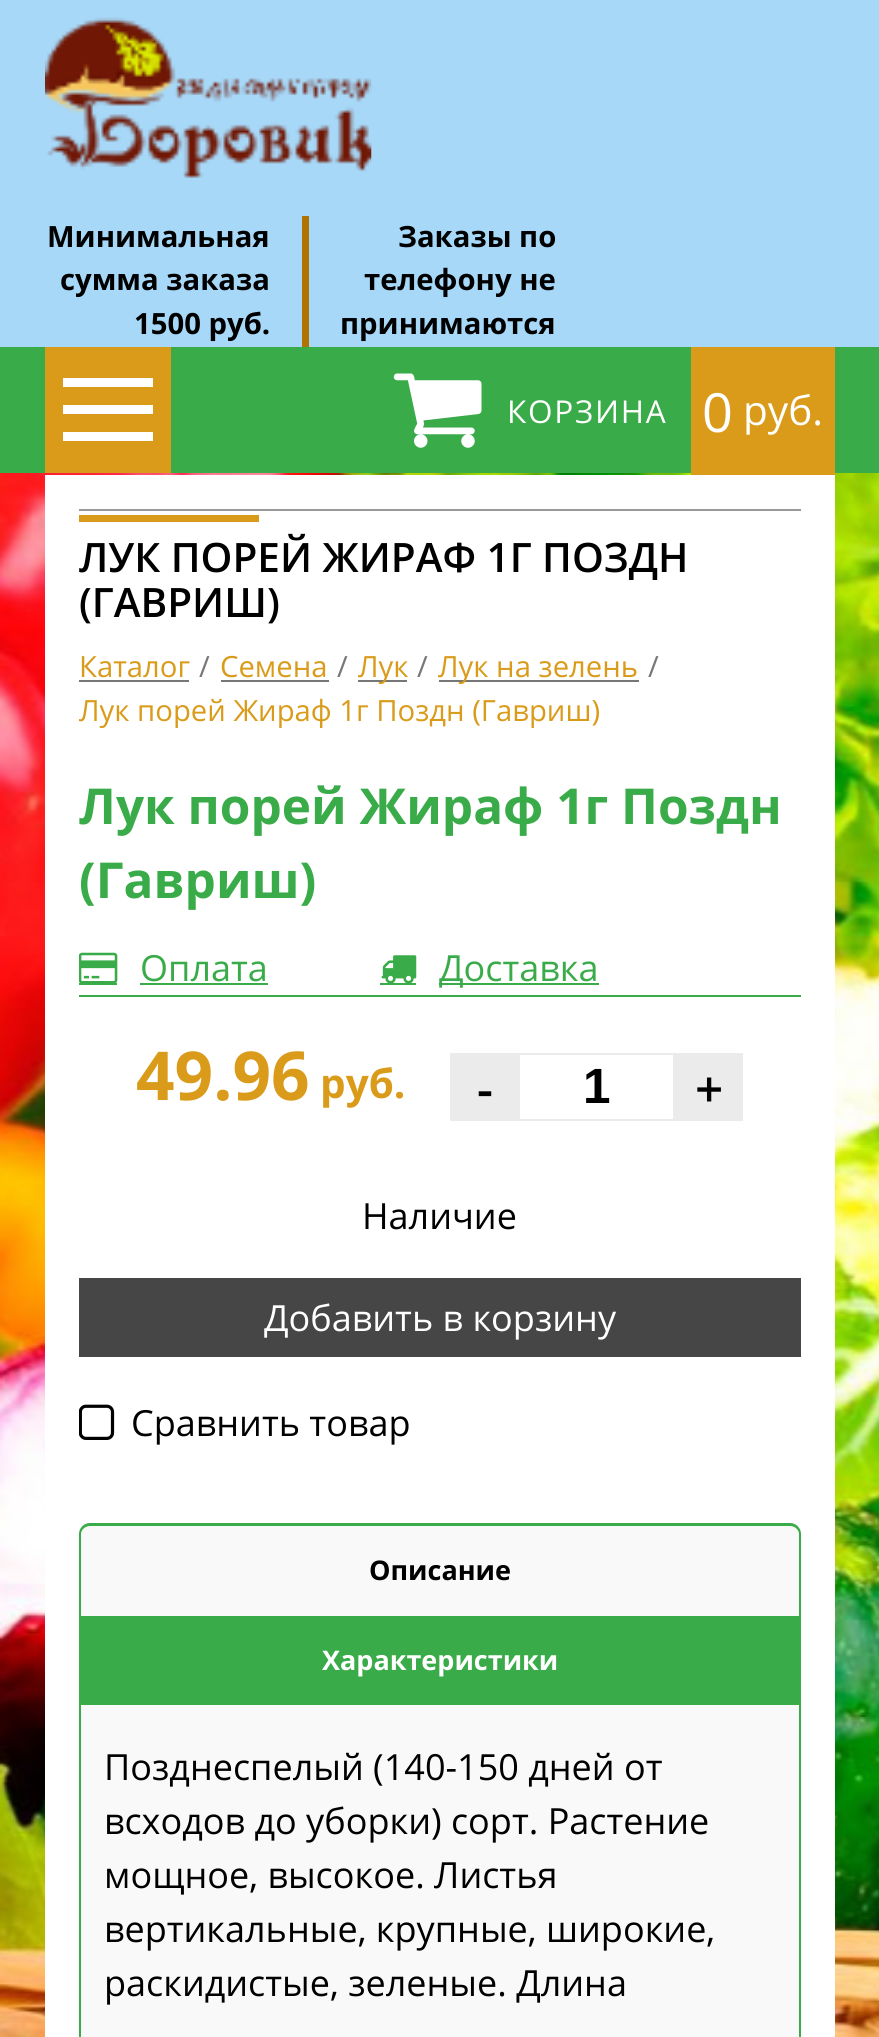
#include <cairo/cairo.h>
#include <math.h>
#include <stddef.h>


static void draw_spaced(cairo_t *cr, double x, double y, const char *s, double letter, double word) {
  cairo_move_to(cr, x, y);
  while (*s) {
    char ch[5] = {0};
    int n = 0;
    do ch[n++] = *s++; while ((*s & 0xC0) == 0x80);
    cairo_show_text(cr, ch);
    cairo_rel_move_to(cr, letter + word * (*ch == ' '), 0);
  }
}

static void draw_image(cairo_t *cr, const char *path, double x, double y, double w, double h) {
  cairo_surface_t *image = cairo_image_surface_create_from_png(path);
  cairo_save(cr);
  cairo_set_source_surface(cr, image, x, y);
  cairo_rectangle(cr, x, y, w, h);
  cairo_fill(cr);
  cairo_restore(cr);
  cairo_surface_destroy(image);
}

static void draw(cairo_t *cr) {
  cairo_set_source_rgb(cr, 1, 1, 1);
  cairo_paint(cr);
  draw_image(cr, "images/1.png", 0, 473, 879, 1564);
  cairo_set_source_rgb(cr, 167 / 255.0, 216 / 255.0, 248 / 255.0);
  cairo_rectangle(cr, 0, 0, 879, 347);
  cairo_fill(cr);
  draw_image(cr, "images/2.png", 45, 17, 327, 161);
  cairo_set_source_rgb(cr, 177 / 255.0, 115 / 255.0, 0);
  cairo_rectangle(cr, 302, 216, 7, 131);
  cairo_fill(cr);
  cairo_set_source_rgb(cr, 57 / 255.0, 171 / 255.0, 73 / 255.0);
  cairo_rectangle(cr, 0, 347, 879, 126);
  cairo_fill(cr);
  cairo_set_source_rgb(cr, 217 / 255.0, 155 / 255.0, 25 / 255.0);
  cairo_rectangle(cr, 45, 347, 126, 126);
  cairo_fill(cr);
  cairo_set_source_rgb(cr, 1, 1, 1);
  cairo_rectangle(cr, 63, 378, 90, 9);
  cairo_fill(cr);
  cairo_rectangle(cr, 63, 405, 90, 9);
  cairo_fill(cr);
  cairo_rectangle(cr, 63, 432, 90, 9);
  cairo_fill(cr);
  draw_image(cr, "images/3.png", 393, 373, 89, 75);
  cairo_set_source_rgb(cr, 217 / 255.0, 155 / 255.0, 25 / 255.0);
  cairo_rectangle(cr, 691, 347, 144, 128);
  cairo_fill(cr);
  cairo_set_source_rgb(cr, 1, 1, 1);
  cairo_rectangle(cr, 45, 475, 790, 1562);
  cairo_fill(cr);
  cairo_set_source_rgb(cr, 153 / 255.0, 153 / 255.0, 153 / 255.0);
  cairo_rectangle(cr, 79, 509, 722, 2);
  cairo_fill(cr);
  cairo_set_source_rgb(cr, 217 / 255.0, 155 / 255.0, 25 / 255.0);
  cairo_rectangle(cr, 79, 515, 180, 7);
  cairo_fill(cr);
  cairo_set_source_rgb(cr, 119 / 255.0, 119 / 255.0, 119 / 255.0);
  cairo_rectangle(cr, 79, 680, 110, 2);
  cairo_fill(cr);
  cairo_rectangle(cr, 221, 680, 108, 2);
  cairo_fill(cr);
  cairo_rectangle(cr, 358, 680, 49, 2);
  cairo_fill(cr);
  cairo_rectangle(cr, 439, 680, 200, 2);
  cairo_fill(cr);
  cairo_set_source_rgb(cr, 57 / 255.0, 171 / 255.0, 73 / 255.0);
  cairo_rectangle(cr, 79, 995, 722, 2);
  cairo_fill(cr);
  draw_image(cr, "images/4.png", 79, 952, 39, 31);
  cairo_rectangle(cr, 79, 983, 38, 2);
  cairo_fill(cr);
  cairo_rectangle(cr, 140, 983, 128, 2);
  cairo_fill(cr);
  draw_image(cr, "images/5.png", 381, 955, 36, 28);
  cairo_rectangle(cr, 380, 983, 36, 2);
  cairo_fill(cr);
  cairo_rectangle(cr, 439, 983, 160, 2);
  cairo_fill(cr);
  cairo_set_source_rgb(cr, 235 / 255.0, 235 / 255.0, 235 / 255.0);
  cairo_rectangle(cr, 450, 1053, 68, 68);
  cairo_fill(cr);
  cairo_rectangle(cr, 519, 1054, 155, 66);
  cairo_stroke(cr);
  cairo_rectangle(cr, 675, 1053, 68, 68);
  cairo_fill(cr);
  cairo_set_source_rgb(cr, 70 / 255.0, 70 / 255.0, 70 / 255.0);
  cairo_rectangle(cr, 79, 1278, 722, 79);
  cairo_fill(cr);
  draw_image(cr, "images/6.png", 79, 1404, 36, 36);
  cairo_set_source_rgb(cr, 249 / 255.0, 249 / 255.0, 249 / 255.0);
  cairo_new_path(cr);
  cairo_move_to(cr, 90, 1523);
  cairo_line_to(cr, 790, 1523);
  cairo_curve_to(cr, 796, 1523, 801, 1528, 801, 1534);
  cairo_line_to(cr, 801, 1616);
  cairo_line_to(cr, 79, 1616);
  cairo_line_to(cr, 79, 1534);
  cairo_curve_to(cr, 79, 1528, 84, 1523, 90, 1523);
  cairo_close_path(cr);
  cairo_fill(cr);
  cairo_set_source_rgb(cr, 57 / 255.0, 171 / 255.0, 73 / 255.0);
  cairo_set_fill_rule(cr, CAIRO_FILL_RULE_EVEN_ODD);
  cairo_new_path(cr);
  cairo_move_to(cr, 90, 1523);
  cairo_line_to(cr, 790, 1523);
  cairo_curve_to(cr, 796, 1523, 801, 1528, 801, 1534);
  cairo_line_to(cr, 801, 1616);
  cairo_line_to(cr, 79, 1616);
  cairo_line_to(cr, 79, 1534);
  cairo_curve_to(cr, 79, 1528, 84, 1523, 90, 1523);
  cairo_close_path(cr);
  cairo_move_to(cr, 90, 1526);
  cairo_line_to(cr, 790, 1526);
  cairo_curve_to(cr, 795, 1526, 799, 1530, 799, 1534);
  cairo_line_to(cr, 799, 1616);
  cairo_line_to(cr, 81, 1616);
  cairo_line_to(cr, 81, 1534);
  cairo_curve_to(cr, 81, 1530, 85, 1526, 90, 1526);
  cairo_close_path(cr);
  cairo_fill(cr);
  cairo_rectangle(cr, 79, 1616, 722, 87);
  cairo_fill(cr);
  cairo_set_source_rgb(cr, 249 / 255.0, 249 / 255.0, 249 / 255.0);
  cairo_rectangle(cr, 80, 1704, 720, 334);
  cairo_fill_preserve(cr);
  cairo_set_source_rgb(cr, 57 / 255.0, 171 / 255.0, 73 / 255.0);
  cairo_stroke(cr);
  cairo_select_font_face(cr, "Open Sans", CAIRO_FONT_SLANT_NORMAL, CAIRO_FONT_WEIGHT_BOLD);
  cairo_set_font_size(cr, 29.25);
  cairo_set_source_rgb(cr, 0, 0, 0);
  cairo_move_to(cr, 47, 247);
  cairo_show_text(cr, "Минимальная");
  cairo_move_to(cr, 60, 290);
  cairo_show_text(cr, "сумма заказа");
  cairo_move_to(cr, 134, 334);
  cairo_show_text(cr, "1500 руб.");
  cairo_move_to(cr, 398, 247);
  cairo_show_text(cr, "Заказы по");
  cairo_move_to(cr, 364, 290);
  cairo_show_text(cr, "телефону не");
  cairo_move_to(cr, 340, 334);
  cairo_show_text(cr, "принимаются");
  cairo_select_font_face(cr, "Open Sans", CAIRO_FONT_SLANT_NORMAL, CAIRO_FONT_WEIGHT_NORMAL);
  cairo_set_font_size(cr, 31.5);
  cairo_set_source_rgb(cr, 1, 1, 1);
  draw_spaced(cr, 507, 423, "КОРЗИНА", 1.75, 0);
  cairo_set_font_size(cr, 54);
  cairo_move_to(cr, 702, 432);
  cairo_show_text(cr, "0");
  cairo_set_font_size(cr, 40.5);
  cairo_move_to(cr, 743, 425);
  cairo_show_text(cr, "руб.");
  cairo_select_font_face(cr, "Open Sans SemiBold", CAIRO_FONT_SLANT_NORMAL, CAIRO_FONT_WEIGHT_NORMAL);
  cairo_set_source_rgb(cr, 0, 0, 0);
  cairo_move_to(cr, 79, 572);
  cairo_show_text(cr, "ЛУК ПОРЕЙ ЖИРАФ 1Г ПОЗДН");
  cairo_move_to(cr, 79, 617);
  cairo_show_text(cr, "(ГАВРИШ)");
  cairo_select_font_face(cr, "Open Sans", CAIRO_FONT_SLANT_NORMAL, CAIRO_FONT_WEIGHT_NORMAL);
  cairo_set_font_size(cr, 29.25);
  cairo_set_source_rgb(cr, 217 / 255.0, 155 / 255.0, 25 / 255.0);
  cairo_move_to(cr, 79, 677);
  cairo_show_text(cr, "Каталог");
  cairo_set_source_rgb(cr, 119 / 255.0, 119 / 255.0, 119 / 255.0);
  cairo_move_to(cr, 199, 677);
  cairo_show_text(cr, "/");
  cairo_set_source_rgb(cr, 217 / 255.0, 155 / 255.0, 25 / 255.0);
  cairo_move_to(cr, 220, 677);
  cairo_show_text(cr, "Семена");
  cairo_set_source_rgb(cr, 119 / 255.0, 119 / 255.0, 119 / 255.0);
  cairo_move_to(cr, 337, 677);
  cairo_show_text(cr, "/");
  cairo_set_source_rgb(cr, 217 / 255.0, 155 / 255.0, 25 / 255.0);
  cairo_move_to(cr, 358, 677);
  cairo_show_text(cr, "Лук");
  cairo_set_source_rgb(cr, 119 / 255.0, 119 / 255.0, 119 / 255.0);
  cairo_move_to(cr, 417, 677);
  cairo_show_text(cr, "/");
  cairo_set_source_rgb(cr, 217 / 255.0, 155 / 255.0, 25 / 255.0);
  cairo_move_to(cr, 438, 677);
  cairo_show_text(cr, "Лук на зелень");
  cairo_set_source_rgb(cr, 119 / 255.0, 119 / 255.0, 119 / 255.0);
  cairo_move_to(cr, 648, 677);
  cairo_show_text(cr, "/");
  cairo_set_source_rgb(cr, 217 / 255.0, 155 / 255.0, 25 / 255.0);
  cairo_move_to(cr, 79, 721);
  cairo_show_text(cr, "Лук порей Жираф 1г Поздн (Гавриш)");
  cairo_select_font_face(cr, "Open Sans", CAIRO_FONT_SLANT_NORMAL, CAIRO_FONT_WEIGHT_BOLD);
  cairo_set_font_size(cr, 49.5);
  cairo_set_source_rgb(cr, 57 / 255.0, 171 / 255.0, 73 / 255.0);
  cairo_move_to(cr, 79, 824);
  cairo_show_text(cr, "Лук порей Жираф 1г Поздн");
  cairo_move_to(cr, 79, 898);
  cairo_show_text(cr, "(Гавриш)");
  cairo_select_font_face(cr, "Open Sans", CAIRO_FONT_SLANT_NORMAL, CAIRO_FONT_WEIGHT_NORMAL);
  cairo_set_font_size(cr, 36);
  cairo_move_to(cr, 140, 981);
  cairo_show_text(cr, "Оплата");
  cairo_move_to(cr, 439, 981);
  cairo_show_text(cr, "Доставка");
  cairo_select_font_face(cr, "Open Sans", CAIRO_FONT_SLANT_NORMAL, CAIRO_FONT_WEIGHT_BOLD);
  cairo_set_font_size(cr, 67.5);
  cairo_set_source_rgb(cr, 217 / 255.0, 155 / 255.0, 25 / 255.0);
  cairo_move_to(cr, 136, 1100);
  cairo_show_text(cr, "49.96");
  cairo_set_font_size(cr, 40.5);
  cairo_move_to(cr, 320, 1098);
  cairo_show_text(cr, "руб.");
  cairo_select_font_face(cr, "Open Sans SemiBold", CAIRO_FONT_SLANT_NORMAL, CAIRO_FONT_WEIGHT_NORMAL);
  cairo_set_font_size(cr, 49.5);
  cairo_set_source_rgb(cr, 0, 0, 0);
  cairo_move_to(cr, 477, 1107);
  cairo_show_text(cr, "-");
  cairo_select_font_face(cr, "Liberation Sans", CAIRO_FONT_SLANT_NORMAL, CAIRO_FONT_WEIGHT_BOLD);
  cairo_move_to(cr, 583, 1103);
  cairo_show_text(cr, "1");
  cairo_select_font_face(cr, "Open Sans SemiBold", CAIRO_FONT_SLANT_NORMAL, CAIRO_FONT_WEIGHT_NORMAL);
  cairo_move_to(cr, 695, 1107);
  cairo_show_text(cr, "+");
  cairo_select_font_face(cr, "Open Sans", CAIRO_FONT_SLANT_NORMAL, CAIRO_FONT_WEIGHT_NORMAL);
  cairo_set_font_size(cr, 36);
  cairo_move_to(cr, 362, 1229);
  cairo_show_text(cr, "Наличие");
  cairo_set_source_rgb(cr, 1, 1, 1);
  cairo_move_to(cr, 264, 1331);
  cairo_show_text(cr, "Добавить в корзину");
  cairo_set_source_rgb(cr, 0, 0, 0);
  cairo_move_to(cr, 131, 1436);
  cairo_show_text(cr, "Cравнить товар");
  cairo_select_font_face(cr, "Open Sans", CAIRO_FONT_SLANT_NORMAL, CAIRO_FONT_WEIGHT_BOLD);
  cairo_set_font_size(cr, 27);
  cairo_move_to(cr, 369, 1580);
  cairo_show_text(cr, "Описание");
  cairo_set_source_rgb(cr, 1, 1, 1);
  cairo_move_to(cr, 322, 1670);
  cairo_show_text(cr, "Характеристики");
  cairo_select_font_face(cr, "Open Sans", CAIRO_FONT_SLANT_NORMAL, CAIRO_FONT_WEIGHT_NORMAL);
  cairo_set_font_size(cr, 36);
  cairo_set_source_rgb(cr, 0, 0, 0);
  cairo_move_to(cr, 104, 1780);
  cairo_show_text(cr, "Позднеспелый (140-150 дней от");
  cairo_move_to(cr, 104, 1834);
  cairo_show_text(cr, "всходов до уборки) сорт. Растение");
  cairo_move_to(cr, 104, 1888);
  cairo_show_text(cr, "мощное, высокое. Листья");
  cairo_move_to(cr, 104, 1942);
  cairo_show_text(cr, "вертикальные, крупные, широкие,");
  cairo_move_to(cr, 104, 1996);
  cairo_show_text(cr, "раскидистые, зеленые. Длина");
}

int main(void) {
  cairo_surface_t *surface = cairo_image_surface_create(CAIRO_FORMAT_RGB24, 879, 2037);
  cairo_t *cr = cairo_create(surface);
  cairo_font_options_t *options = cairo_font_options_create();
  cairo_font_options_set_hint_metrics(options, CAIRO_HINT_METRICS_OFF);
  cairo_font_options_set_hint_style(options, CAIRO_HINT_STYLE_NONE);
  cairo_set_font_options(cr, options);
  cairo_set_miter_limit(cr, 4);
  draw(cr);
  cairo_surface_write_to_png(surface, "out.png");
  cairo_font_options_destroy(options);
  cairo_destroy(cr);
  cairo_surface_destroy(surface);
  return 0;
}
